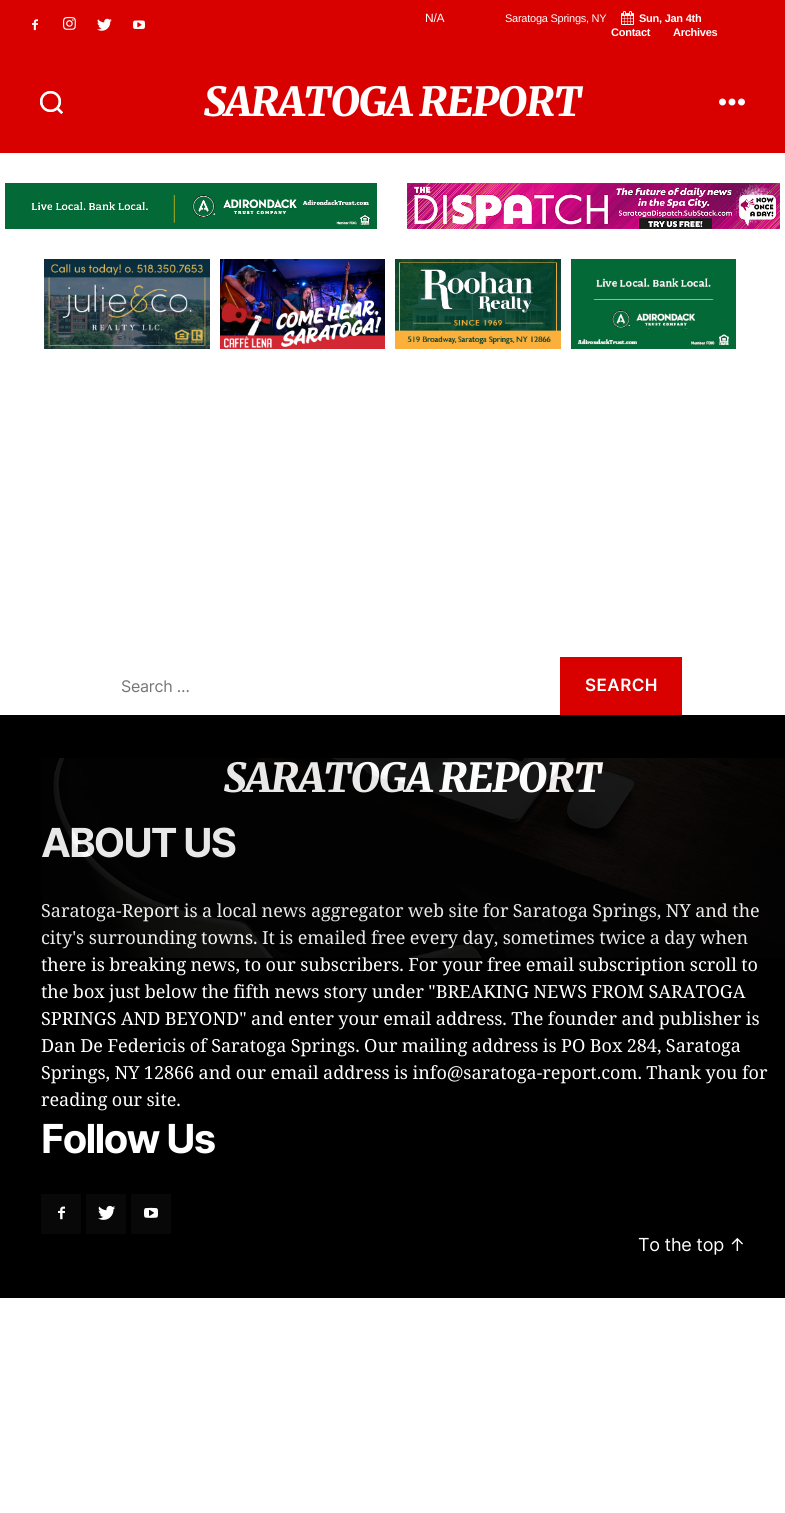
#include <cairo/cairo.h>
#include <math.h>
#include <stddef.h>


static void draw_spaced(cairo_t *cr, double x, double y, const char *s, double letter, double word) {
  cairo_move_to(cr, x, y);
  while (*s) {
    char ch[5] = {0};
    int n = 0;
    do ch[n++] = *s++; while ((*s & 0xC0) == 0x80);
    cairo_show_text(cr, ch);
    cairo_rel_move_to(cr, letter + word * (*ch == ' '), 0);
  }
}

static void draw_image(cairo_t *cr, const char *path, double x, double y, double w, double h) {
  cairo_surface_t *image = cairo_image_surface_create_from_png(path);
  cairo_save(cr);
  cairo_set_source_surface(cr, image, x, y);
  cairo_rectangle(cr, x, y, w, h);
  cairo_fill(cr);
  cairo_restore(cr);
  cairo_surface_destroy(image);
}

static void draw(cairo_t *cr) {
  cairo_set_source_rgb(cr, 1, 1, 1);
  cairo_paint(cr);
  cairo_set_source_rgb(cr, 217 / 255.0, 0, 0);
  cairo_rectangle(cr, 0, 0, 785, 153);
  cairo_fill(cr);
  draw_image(cr, "images/1.png", 32, 19, 6, 12);
  draw_image(cr, "images/2.png", 63, 17, 13, 13);
  draw_image(cr, "images/3.png", 97, 18, 15, 13);
  draw_image(cr, "images/4.png", 133, 20, 12, 9);
  draw_image(cr, "images/5.png", 621, 11, 13, 14);
  draw_image(cr, "images/7.png", 40, 91, 23, 23);
  draw_image(cr, "images/6.png", 40, 91, 23, 23);
  draw_image(cr, "images/8.png", 719, 98, 26, 8);
  draw_image(cr, "images/9.png", 5, 183, 372, 46);
  draw_image(cr, "images/10.png", 407, 183, 373, 46);
  draw_image(cr, "images/11.png", 44, 259, 166, 90);
  draw_image(cr, "images/12.png", 220, 259, 165, 90);
  draw_image(cr, "images/13.png", 395, 259, 166, 90);
  draw_image(cr, "images/14.png", 571, 259, 165, 90);
  cairo_rectangle(cr, 560, 657, 122, 58);
  cairo_fill(cr);
  cairo_set_source_rgb(cr, 0, 0, 0);
  cairo_rectangle(cr, 0, 715, 785, 583);
  cairo_fill(cr);
  cairo_set_source_rgb(cr, 8 / 255.0, 8 / 255.0, 8 / 255.0);
  cairo_rectangle(cr, 41, 1194, 40, 40);
  cairo_fill(cr);
  draw_image(cr, "images/16.png", 58, 1206, 7, 14);
  cairo_rectangle(cr, 86, 1194, 40, 40);
  cairo_fill(cr);
  draw_image(cr, "images/17.png", 98, 1205, 18, 15);
  cairo_rectangle(cr, 131, 1194, 40, 40);
  cairo_fill(cr);
  draw_image(cr, "images/18.png", 144, 1207, 14, 11);
  cairo_select_font_face(cr, "Liberation Sans", CAIRO_FONT_SLANT_NORMAL, CAIRO_FONT_WEIGHT_NORMAL);
  cairo_set_font_size(cr, 12);
  cairo_set_source_rgb(cr, 1, 1, 1);
  draw_spaced(cr, 425, 22, "N/A", -0.25, 0);
  cairo_set_font_size(cr, 11);
  draw_spaced(cr, 505, 22, "Saratoga Springs, NY", -0.25, 0);
  cairo_select_font_face(cr, "Liberation Sans", CAIRO_FONT_SLANT_NORMAL, CAIRO_FONT_WEIGHT_BOLD);
  draw_spaced(cr, 639, 22, "Sun, Jan 4th", -0.25, 0);
  draw_spaced(cr, 611, 36, "Contact", -0.25, 0);
  draw_spaced(cr, 673, 36, "Archives", -0.25, 0);
  cairo_select_font_face(cr, "Merriweather Light", CAIRO_FONT_SLANT_ITALIC, CAIRO_FONT_WEIGHT_NORMAL);
  cairo_set_font_size(cr, 40);
  draw_spaced(cr, 204, 116, "SARATOGA REPORT", -1, 0);
  cairo_select_font_face(cr, "Inter", CAIRO_FONT_SLANT_NORMAL, CAIRO_FONT_WEIGHT_NORMAL);
  cairo_set_font_size(cr, 16);
  cairo_set_source_rgb(cr, 117 / 255.0, 117 / 255.0, 117 / 255.0);
  draw_spaced(cr, 121, 692, "Search …", -0.25, 0);
  cairo_select_font_face(cr, "Inter SemiBold", CAIRO_FONT_SLANT_NORMAL, CAIRO_FONT_WEIGHT_NORMAL);
  cairo_set_font_size(cr, 17);
  cairo_set_source_rgb(cr, 1, 1, 1);
  draw_spaced(cr, 585, 691, "SEARCH", 0.5, 0);
  cairo_select_font_face(cr, "Merriweather Light", CAIRO_FONT_SLANT_ITALIC, CAIRO_FONT_WEIGHT_NORMAL);
  cairo_set_font_size(cr, 40);
  draw_spaced(cr, 224, 792, "SARATOGA REPORT", -1, 0);
  cairo_select_font_face(cr, "Inter", CAIRO_FONT_SLANT_NORMAL, CAIRO_FONT_WEIGHT_BOLD);
  draw_spaced(cr, 41, 857, "ABOUT US", -1.75, 0);
  cairo_select_font_face(cr, "Noto Serif", CAIRO_FONT_SLANT_NORMAL, CAIRO_FONT_WEIGHT_NORMAL);
  cairo_set_font_size(cr, 18);
  draw_spaced(cr, 41, 917, "Saratoga-Report is a local news aggregator web site for Saratoga Springs, NY and the", 0, -0.25);
  draw_spaced(cr, 41, 944, "city's surrounding towns. It is emailed free every day, sometimes twice a day when", 0, -0.25);
  draw_spaced(cr, 41, 971, "there is breaking news, to our subscribers. For your free email subscription scroll to", 0, -0.25);
  draw_image(cr, "images/15.png", 42, 758, 743, 200);
  draw_spaced(cr, 41, 998, "the box just below the fifth news story under \"BREAKING NEWS FROM SARATOGA", 0, -0.25);
  draw_spaced(cr, 41, 1025, "SPRINGS AND BEYOND\" and enter your email address. The founder and publisher is", 0, -0.25);
  draw_spaced(cr, 41, 1052, "Dan De Federicis of Saratoga Springs. Our mailing address is PO Box 284, Saratoga", 0, -0.25);
  draw_spaced(cr, 41, 1079, "Springs, NY 12866 and our email address is info@saratoga-report.com. Thank you for", 0, -0.25);
  draw_spaced(cr, 41, 1106, "reading our site.", 0, -0.25);
  cairo_select_font_face(cr, "Inter", CAIRO_FONT_SLANT_NORMAL, CAIRO_FONT_WEIGHT_BOLD);
  cairo_set_font_size(cr, 40);
  draw_spaced(cr, 41, 1153, "Follow Us", -1.75, 0);
  cairo_select_font_face(cr, "Inter", CAIRO_FONT_SLANT_NORMAL, CAIRO_FONT_WEIGHT_NORMAL);
  cairo_set_font_size(cr, 18);
  draw_spaced(cr, 638, 1251, "To the top ↑", -0.25, 0);
}

int main(void) {
  cairo_surface_t *surface = cairo_image_surface_create(CAIRO_FORMAT_RGB24, 785, 1513);
  cairo_t *cr = cairo_create(surface);
  cairo_font_options_t *options = cairo_font_options_create();
  cairo_font_options_set_hint_metrics(options, CAIRO_HINT_METRICS_OFF);
  cairo_font_options_set_hint_style(options, CAIRO_HINT_STYLE_NONE);
  cairo_set_font_options(cr, options);
  cairo_set_miter_limit(cr, 4);
  draw(cr);
  cairo_surface_write_to_png(surface, "out.png");
  cairo_font_options_destroy(options);
  cairo_destroy(cr);
  cairo_surface_destroy(surface);
  return 0;
}
